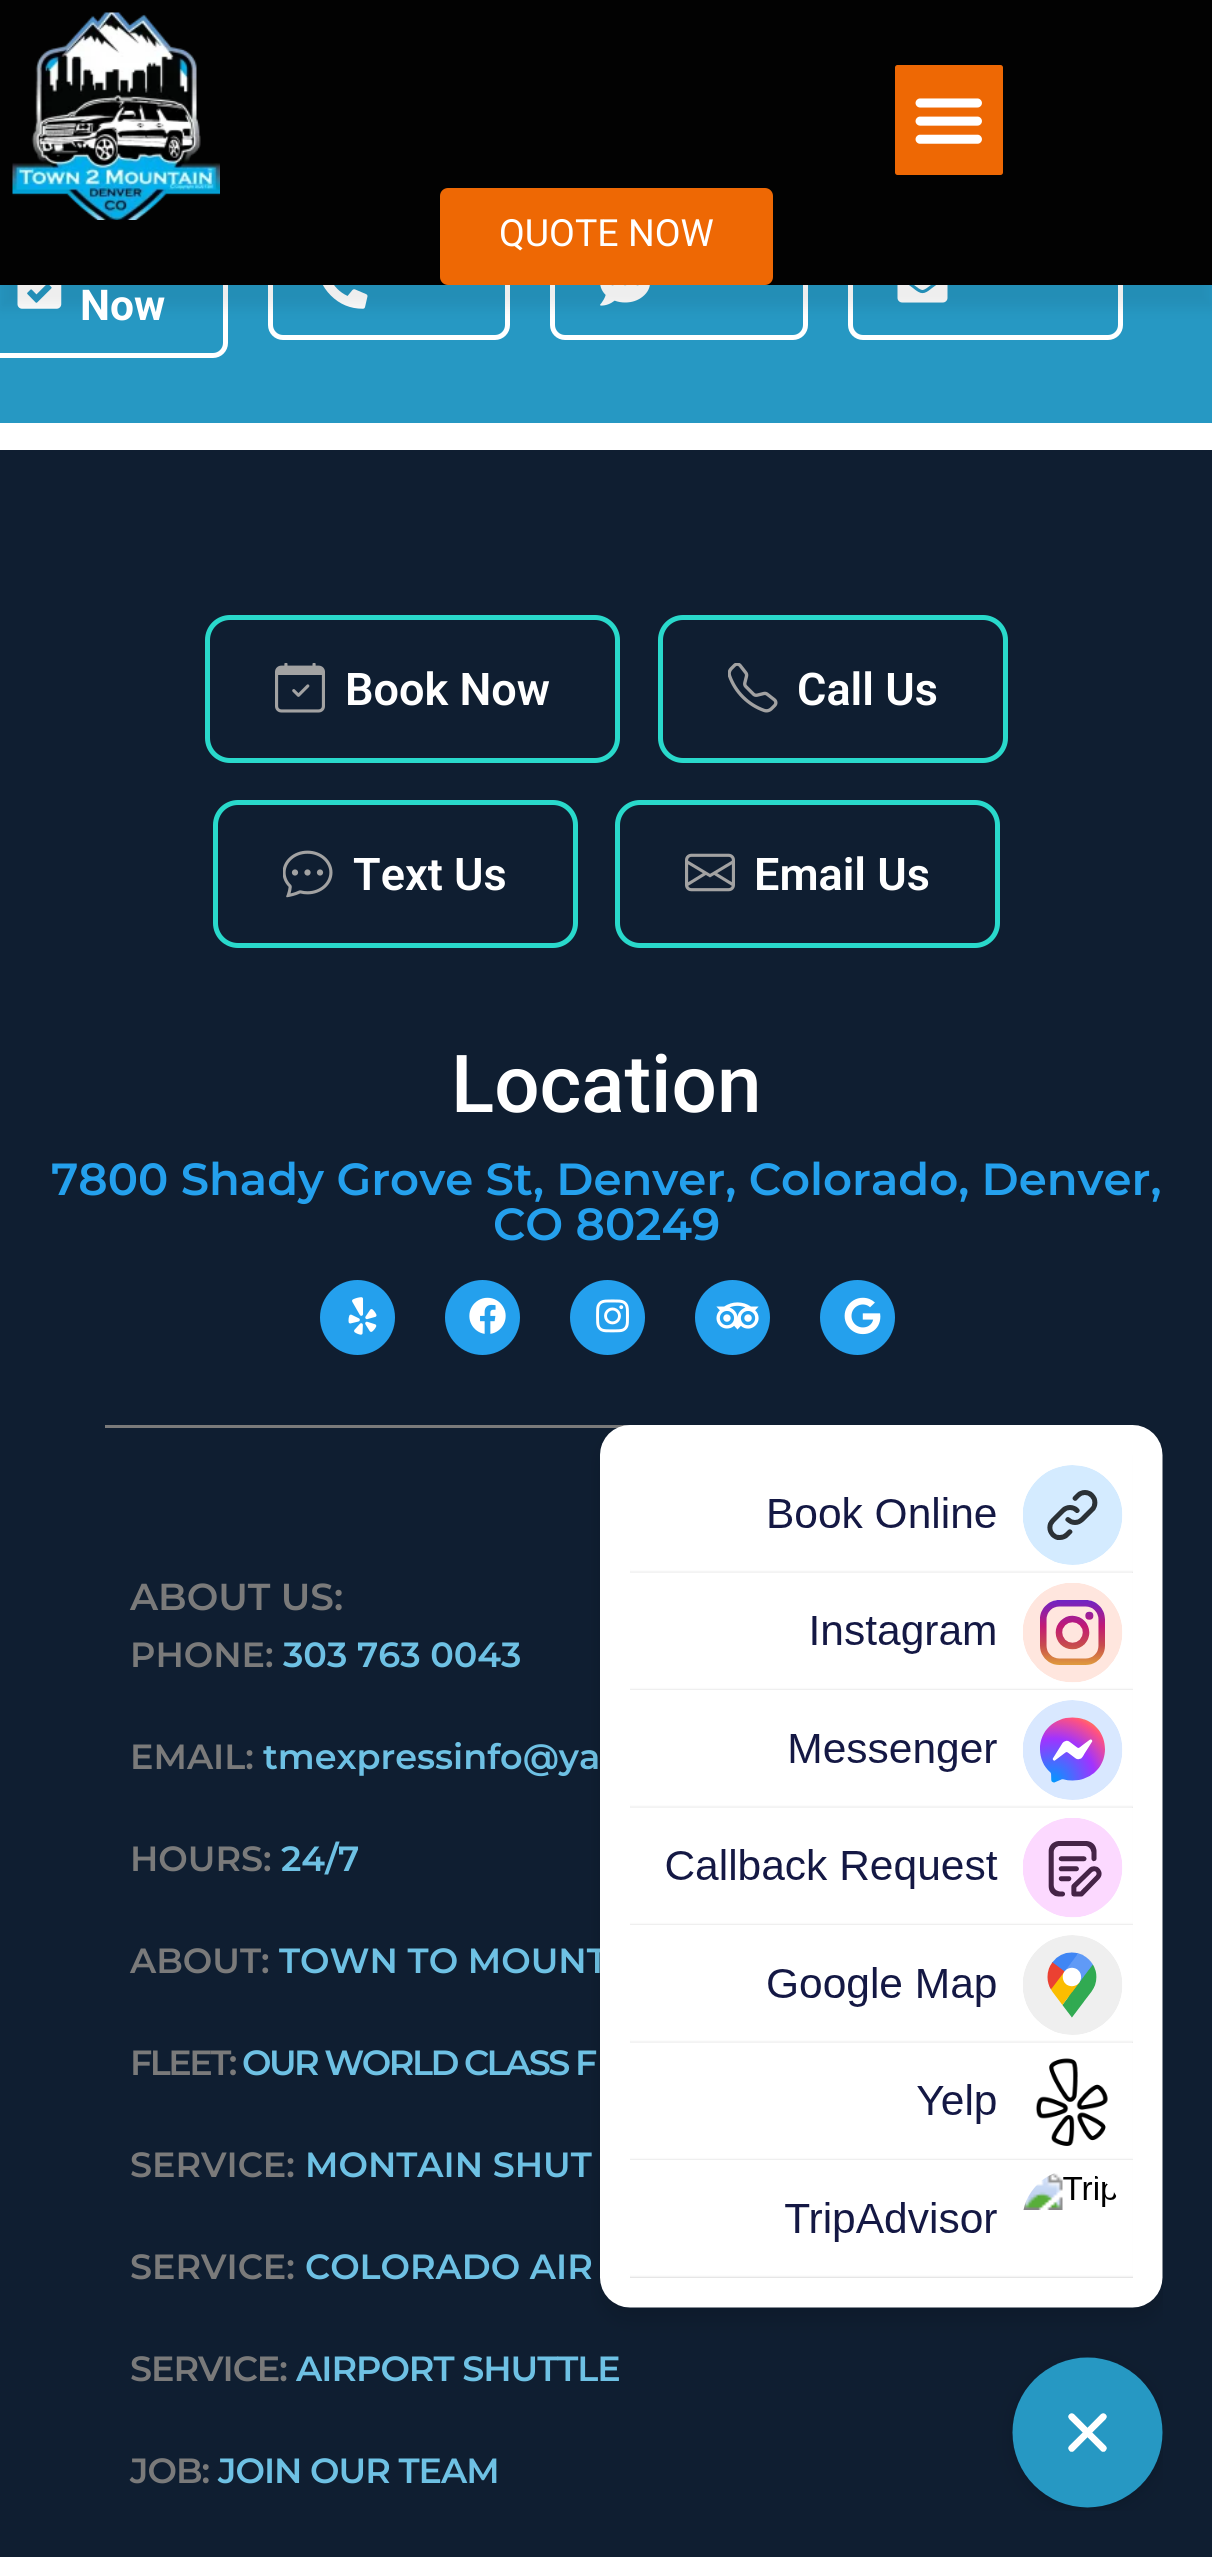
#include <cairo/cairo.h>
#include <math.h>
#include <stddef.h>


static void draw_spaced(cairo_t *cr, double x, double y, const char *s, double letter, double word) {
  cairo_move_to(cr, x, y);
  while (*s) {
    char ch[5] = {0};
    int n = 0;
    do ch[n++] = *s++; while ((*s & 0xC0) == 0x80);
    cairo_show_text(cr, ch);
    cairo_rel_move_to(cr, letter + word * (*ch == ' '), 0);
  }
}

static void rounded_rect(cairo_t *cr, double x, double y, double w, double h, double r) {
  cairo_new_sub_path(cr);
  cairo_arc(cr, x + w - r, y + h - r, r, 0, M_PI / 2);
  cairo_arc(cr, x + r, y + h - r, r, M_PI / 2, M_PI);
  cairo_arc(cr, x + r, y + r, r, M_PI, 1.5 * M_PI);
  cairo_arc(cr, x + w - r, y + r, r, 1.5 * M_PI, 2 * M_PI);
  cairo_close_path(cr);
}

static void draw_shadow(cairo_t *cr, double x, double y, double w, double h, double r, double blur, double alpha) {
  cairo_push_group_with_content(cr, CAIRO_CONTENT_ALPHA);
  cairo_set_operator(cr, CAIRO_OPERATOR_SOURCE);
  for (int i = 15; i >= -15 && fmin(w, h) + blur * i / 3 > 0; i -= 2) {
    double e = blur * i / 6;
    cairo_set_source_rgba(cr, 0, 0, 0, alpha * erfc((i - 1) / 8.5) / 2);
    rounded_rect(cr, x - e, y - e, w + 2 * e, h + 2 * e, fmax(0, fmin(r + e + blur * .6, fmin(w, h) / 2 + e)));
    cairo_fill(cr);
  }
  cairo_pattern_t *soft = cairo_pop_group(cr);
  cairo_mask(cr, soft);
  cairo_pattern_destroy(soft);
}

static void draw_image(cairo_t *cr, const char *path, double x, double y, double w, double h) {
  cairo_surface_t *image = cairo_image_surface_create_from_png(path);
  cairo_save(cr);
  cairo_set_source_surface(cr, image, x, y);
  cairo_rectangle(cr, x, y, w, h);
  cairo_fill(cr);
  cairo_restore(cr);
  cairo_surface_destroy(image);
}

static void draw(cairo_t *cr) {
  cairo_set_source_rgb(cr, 1, 1, 1);
  cairo_paint(cr);
  cairo_set_source_rgb(cr, 38 / 255.0, 152 / 255.0, 195 / 255.0);
  cairo_rectangle(cr, 0, 285, 1212, 138);
  cairo_fill(cr);
  rounded_rect(cr, -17.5, 215.5, 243, 140, 12.5);
  cairo_set_source_rgb(cr, 1, 1, 1);
  cairo_set_line_width(cr, 5);
  cairo_stroke(cr);
  draw_image(cr, "images/3.png", 17, 285, 45, 24);
  rounded_rect(cr, 270.5, 232.5, 237, 105, 12.5);
  cairo_stroke(cr);
  draw_image(cr, "images/4.png", 323, 285, 45, 24);
  rounded_rect(cr, 552.5, 232.5, 253, 105, 12.5);
  cairo_stroke(cr);
  draw_image(cr, "images/5.png", 600, 285, 50, 21);
  rounded_rect(cr, 850.5, 232.5, 270, 105, 12.5);
  cairo_stroke(cr);
  draw_image(cr, "images/6.png", 897, 285, 51, 18);
  cairo_set_source_rgb(cr, 0, 0, 0);
  draw_shadow(cr, 0, 23, 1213, 285, 0, 7.5, 0.07);
  cairo_set_source_rgb(cr, 2 / 255.0, 2 / 255.0, 2 / 255.0);
  cairo_rectangle(cr, 0, 0, 1212, 285);
  cairo_fill(cr);
  draw_image(cr, "images/1.png", 12, 12, 208, 208);
  cairo_set_source_rgb(cr, 238 / 255.0, 104 / 255.0, 4 / 255.0);
  rounded_rect(cr, 895, 65, 108, 110, 2.5);
  cairo_fill(cr);
  draw_image(cr, "images/2.png", 915, 98, 67, 46);
  rounded_rect(cr, 440, 188, 333, 97, 8);
  cairo_fill(cr);
  cairo_set_source_rgb(cr, 15 / 255.0, 30 / 255.0, 49 / 255.0);
  cairo_rectangle(cr, 0, 450, 1212, 2107);
  cairo_fill(cr);
  rounded_rect(cr, 207.5, 617.5, 410, 143, 22.5);
  cairo_set_source_rgb(cr, 41 / 255.0, 217 / 255.0, 203 / 255.0);
  cairo_stroke(cr);
  draw_image(cr, "images/7.png", 275, 663, 50, 50);
  rounded_rect(cr, 660.5, 617.5, 345, 143, 22.5);
  cairo_stroke(cr);
  draw_image(cr, "images/8.png", 728, 663, 50, 50);
  rounded_rect(cr, 215.5, 802.5, 360, 143, 22.5);
  cairo_stroke(cr);
  draw_image(cr, "images/9.png", 283, 850, 50, 48);
  rounded_rect(cr, 617.5, 802.5, 380, 143, 22.5);
  cairo_stroke(cr);
  draw_image(cr, "images/10.png", 685, 853, 50, 39);
  cairo_arc(cr, 357.5, 1317.5, 25, 0, 2 * M_PI);
  cairo_set_source_rgb(cr, 36 / 255.0, 160 / 255.0, 237 / 255.0);
  cairo_set_line_width(cr, 25);
  cairo_stroke(cr);
  cairo_rectangle(cr, 345, 1305, 25, 25);
  cairo_fill(cr);
  draw_image(cr, "images/11.png", 348, 1297, 29, 38);
  cairo_arc(cr, 482.5, 1317.5, 25, 0, 2 * M_PI);
  cairo_stroke(cr);
  cairo_rectangle(cr, 470, 1305, 25, 25);
  cairo_fill(cr);
  draw_image(cr, "images/12.png", 469, 1297, 37, 37);
  cairo_arc(cr, 607.5, 1317.5, 25, 0, 2 * M_PI);
  cairo_stroke(cr);
  cairo_rectangle(cr, 595, 1305, 25, 25);
  cairo_fill(cr);
  draw_image(cr, "images/13.png", 596, 1299, 33, 34);
  cairo_arc(cr, 732.5, 1317.5, 25, 0, 2 * M_PI);
  cairo_stroke(cr);
  cairo_rectangle(cr, 720, 1305, 25, 25);
  cairo_fill(cr);
  draw_image(cr, "images/14.png", 716, 1302, 43, 28);
  cairo_arc(cr, 857.5, 1317.5, 25, 0, 2 * M_PI);
  cairo_stroke(cr);
  cairo_rectangle(cr, 845, 1305, 25, 25);
  cairo_fill(cr);
  draw_image(cr, "images/15.png", 844, 1297, 37, 38);
  cairo_set_source_rgb(cr, 122 / 255.0, 122 / 255.0, 122 / 255.0);
  cairo_rectangle(cr, 105, 1425, 525, 3);
  cairo_fill(cr);
  cairo_select_font_face(cr, "Roboto", CAIRO_FONT_SLANT_NORMAL, CAIRO_FONT_WEIGHT_NORMAL);
  cairo_set_font_size(cr, 37.5);
  cairo_set_source_rgb(cr, 1, 1, 1);
  cairo_move_to(cr, 499, 246);
  cairo_show_text(cr, "QUOTE NOW");
  cairo_select_font_face(cr, "Roboto", CAIRO_FONT_SLANT_NORMAL, CAIRO_FONT_WEIGHT_BOLD);
  cairo_set_font_size(cr, 42.5);
  cairo_move_to(cr, 80, 320);
  cairo_show_text(cr, "Now");
  cairo_select_font_face(cr, "Roboto SemiBold", CAIRO_FONT_SLANT_NORMAL, CAIRO_FONT_WEIGHT_NORMAL);
  cairo_set_font_size(cr, 45);
  cairo_move_to(cr, 345, 705);
  cairo_show_text(cr, "Book Now");
  cairo_move_to(cr, 797, 705);
  cairo_show_text(cr, "Call Us");
  cairo_move_to(cr, 353, 890);
  cairo_show_text(cr, "Text Us");
  cairo_move_to(cr, 754, 890);
  cairo_show_text(cr, "Email Us");
  cairo_select_font_face(cr, "Roboto Medium", CAIRO_FONT_SLANT_NORMAL, CAIRO_FONT_WEIGHT_NORMAL);
  cairo_set_font_size(cr, 80);
  cairo_move_to(cr, 451, 1112);
  cairo_show_text(cr, "Location");
  cairo_select_font_face(cr, "Montserrat SemiBold", CAIRO_FONT_SLANT_NORMAL, CAIRO_FONT_WEIGHT_NORMAL);
  cairo_set_font_size(cr, 45);
  cairo_set_source_rgb(cr, 36 / 255.0, 160 / 255.0, 237 / 255.0);
  cairo_move_to(cr, 51, 1195);
  cairo_show_text(cr, "7800 Shady Grove St, Denver, Colorado, Denver,");
  cairo_move_to(cr, 493, 1240);
  cairo_show_text(cr, "CO 80249");
  cairo_set_font_size(cr, 37.5);
  cairo_set_source_rgb(cr, 122 / 255.0, 122 / 255.0, 122 / 255.0);
  cairo_move_to(cr, 130, 1610);
  cairo_show_text(cr, "ABOUT US:");
  cairo_set_font_size(cr, 35);
  cairo_move_to(cr, 130, 1667);
  cairo_show_text(cr, "PHONE:");
  cairo_set_source_rgb(cr, 110 / 255.0, 193 / 255.0, 228 / 255.0);
  cairo_move_to(cr, 283, 1667);
  cairo_show_text(cr, "303 763 0043");
  cairo_set_source_rgb(cr, 122 / 255.0, 122 / 255.0, 122 / 255.0);
  cairo_move_to(cr, 130, 1769);
  cairo_show_text(cr, "EMAIL:");
  cairo_set_source_rgb(cr, 110 / 255.0, 193 / 255.0, 228 / 255.0);
  cairo_move_to(cr, 263, 1769);
  cairo_show_text(cr, "tmexpressinfo@ya");
  cairo_set_source_rgb(cr, 122 / 255.0, 122 / 255.0, 122 / 255.0);
  cairo_move_to(cr, 130, 1871);
  cairo_show_text(cr, "HOURS:");
  cairo_set_source_rgb(cr, 110 / 255.0, 193 / 255.0, 228 / 255.0);
  cairo_move_to(cr, 281, 1871);
  cairo_show_text(cr, "24/7");
  cairo_set_source_rgb(cr, 122 / 255.0, 122 / 255.0, 122 / 255.0);
  cairo_move_to(cr, 130, 1973);
  cairo_show_text(cr, "ABOUT:");
  cairo_set_source_rgb(cr, 110 / 255.0, 193 / 255.0, 228 / 255.0);
  cairo_move_to(cr, 279, 1973);
  cairo_show_text(cr, "TOWN TO MOUNT");
  cairo_set_source_rgb(cr, 122 / 255.0, 122 / 255.0, 122 / 255.0);
  draw_spaced(cr, 130, 2075, "FLEET:", -2.5, 0);
  cairo_set_source_rgb(cr, 110 / 255.0, 193 / 255.0, 228 / 255.0);
  draw_spaced(cr, 242, 2075, "OUR WORLD CLASS F", -2.5, 0);
  cairo_set_source_rgb(cr, 122 / 255.0, 122 / 255.0, 122 / 255.0);
  cairo_move_to(cr, 130, 2177);
  cairo_show_text(cr, "SERVICE:");
  cairo_set_source_rgb(cr, 110 / 255.0, 193 / 255.0, 228 / 255.0);
  cairo_move_to(cr, 305, 2177);
  cairo_show_text(cr, "MONTAIN SHUT");
  cairo_set_source_rgb(cr, 122 / 255.0, 122 / 255.0, 122 / 255.0);
  cairo_move_to(cr, 130, 2279);
  cairo_show_text(cr, "SERVICE:");
  cairo_set_source_rgb(cr, 110 / 255.0, 193 / 255.0, 228 / 255.0);
  cairo_move_to(cr, 305, 2279);
  cairo_show_text(cr, "COLORADO AIR");
  cairo_set_source_rgb(cr, 122 / 255.0, 122 / 255.0, 122 / 255.0);
  draw_spaced(cr, 130, 2381, "SERVICE:", -1, 0);
  cairo_set_source_rgb(cr, 110 / 255.0, 193 / 255.0, 228 / 255.0);
  draw_spaced(cr, 296, 2381, "AIRPORT SHUTTLE", -1, 0);
  cairo_set_source_rgb(cr, 122 / 255.0, 122 / 255.0, 122 / 255.0);
  draw_spaced(cr, 130, 2483, "JOB:", -1, 0);
  cairo_set_source_rgb(cr, 110 / 255.0, 193 / 255.0, 228 / 255.0);
  draw_spaced(cr, 218, 2483, "JOIN OUR TEAM", -1, 0);
  draw_image(cr, "images/16.png", 591, 1425, 572, 1086);
}

int main(void) {
  cairo_surface_t *surface = cairo_image_surface_create(CAIRO_FORMAT_RGB24, 1212, 2557);
  cairo_t *cr = cairo_create(surface);
  cairo_font_options_t *options = cairo_font_options_create();
  cairo_font_options_set_hint_metrics(options, CAIRO_HINT_METRICS_OFF);
  cairo_font_options_set_hint_style(options, CAIRO_HINT_STYLE_NONE);
  cairo_set_font_options(cr, options);
  cairo_set_miter_limit(cr, 4);
  draw(cr);
  cairo_surface_write_to_png(surface, "out.png");
  cairo_font_options_destroy(options);
  cairo_destroy(cr);
  cairo_surface_destroy(surface);
  return 0;
}
